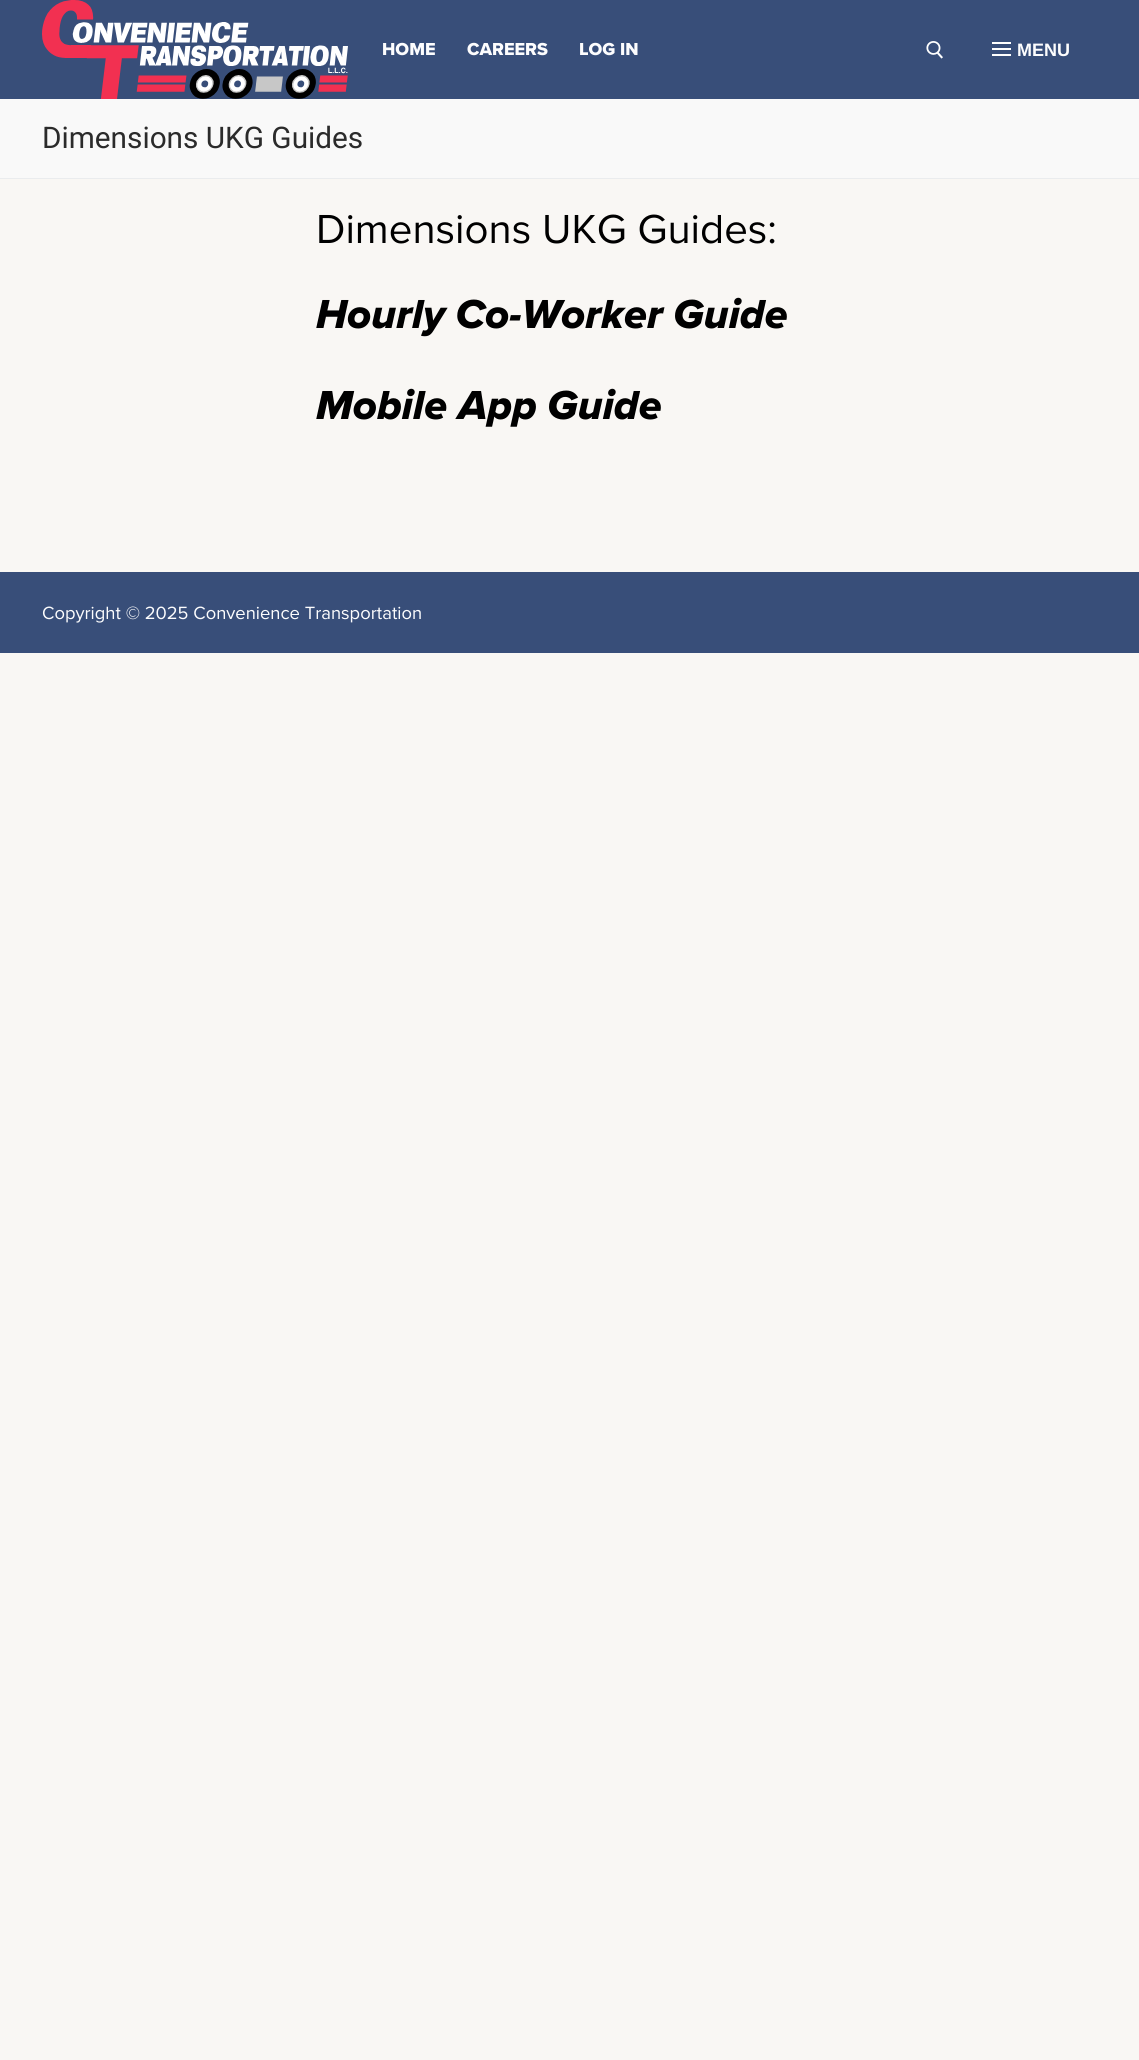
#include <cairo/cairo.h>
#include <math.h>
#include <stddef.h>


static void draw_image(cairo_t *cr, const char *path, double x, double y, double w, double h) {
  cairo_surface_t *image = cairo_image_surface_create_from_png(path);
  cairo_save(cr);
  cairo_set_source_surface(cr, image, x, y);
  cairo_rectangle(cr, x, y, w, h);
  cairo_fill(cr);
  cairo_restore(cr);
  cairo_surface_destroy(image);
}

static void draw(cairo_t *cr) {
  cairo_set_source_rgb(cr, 249 / 255.0, 247 / 255.0, 244 / 255.0);
  cairo_paint(cr);
  cairo_set_source_rgb(cr, 56 / 255.0, 78 / 255.0, 121 / 255.0);
  cairo_rectangle(cr, 0, 0, 1139, 99);
  cairo_fill(cr);
  draw_image(cr, "images/1.png", 42, 0, 306, 99);
  draw_image(cr, "images/2.png", 926, 41, 17, 18);
  cairo_set_source_rgb(cr, 1, 1, 1);
  cairo_rectangle(cr, 992, 48, 19, 2);
  cairo_fill(cr);
  cairo_rectangle(cr, 992, 42, 19, 2);
  cairo_fill(cr);
  cairo_rectangle(cr, 992, 54, 19, 2);
  cairo_fill(cr);
  cairo_set_source_rgb(cr, 249 / 255.0, 249 / 255.0, 249 / 255.0);
  cairo_rectangle(cr, 0, 99, 1139, 79);
  cairo_fill(cr);
  cairo_set_source_rgb(cr, 234 / 255.0, 236 / 255.0, 238 / 255.0);
  cairo_rectangle(cr, 0, 178, 1139, 1);
  cairo_fill(cr);
  cairo_set_source_rgb(cr, 56 / 255.0, 78 / 255.0, 121 / 255.0);
  cairo_rectangle(cr, 0, 572, 1139, 81);
  cairo_fill(cr);
  cairo_select_font_face(cr, "Proxima Nova ExtraBold", CAIRO_FONT_SLANT_NORMAL, CAIRO_FONT_WEIGHT_NORMAL);
  cairo_set_font_size(cr, 18);
  cairo_set_source_rgb(cr, 253 / 255.0, 253 / 255.0, 254 / 255.0);
  cairo_move_to(cr, 382, 55);
  cairo_show_text(cr, "HOME");
  cairo_move_to(cr, 467, 55);
  cairo_show_text(cr, "CAREERS");
  cairo_move_to(cr, 579, 55);
  cairo_show_text(cr, "LOG IN");
  cairo_select_font_face(cr, "Liberation Sans", CAIRO_FONT_SLANT_NORMAL, CAIRO_FONT_WEIGHT_BOLD);
  cairo_move_to(cr, 1017, 56);
  cairo_show_text(cr, "MENU");
  cairo_select_font_face(cr, "Roboto", CAIRO_FONT_SLANT_NORMAL, CAIRO_FONT_WEIGHT_NORMAL);
  cairo_set_font_size(cr, 29.75);
  cairo_set_source_rgb(cr, 43 / 255.0, 43 / 255.0, 43 / 255.0);
  cairo_move_to(cr, 42, 148);
  cairo_show_text(cr, "Dimensions UKG Guides");
  cairo_select_font_face(cr, "Proxima Nova", CAIRO_FONT_SLANT_NORMAL, CAIRO_FONT_WEIGHT_NORMAL);
  cairo_set_font_size(cr, 42);
  cairo_set_source_rgb(cr, 0, 0, 0);
  cairo_move_to(cr, 316, 243);
  cairo_show_text(cr, "Dimensions UKG Guides:");
  cairo_select_font_face(cr, "Proxima Nova ExtraBold", CAIRO_FONT_SLANT_ITALIC, CAIRO_FONT_WEIGHT_NORMAL);
  cairo_move_to(cr, 316, 328);
  cairo_show_text(cr, "Hourly Co-Worker Guide");
  cairo_move_to(cr, 316, 419);
  cairo_show_text(cr, "Mobile App Guide");
  cairo_select_font_face(cr, "Proxima Nova", CAIRO_FONT_SLANT_NORMAL, CAIRO_FONT_WEIGHT_NORMAL);
  cairo_set_font_size(cr, 18.4);
  cairo_set_source_rgb(cr, 253 / 255.0, 253 / 255.0, 254 / 255.0);
  cairo_move_to(cr, 42, 619);
  cairo_show_text(cr, "Copyright © 2025 Convenience Transportation");
}

int main(void) {
  cairo_surface_t *surface = cairo_image_surface_create(CAIRO_FORMAT_RGB24, 1139, 2060);
  cairo_t *cr = cairo_create(surface);
  cairo_font_options_t *options = cairo_font_options_create();
  cairo_font_options_set_hint_metrics(options, CAIRO_HINT_METRICS_OFF);
  cairo_font_options_set_hint_style(options, CAIRO_HINT_STYLE_NONE);
  cairo_set_font_options(cr, options);
  cairo_set_miter_limit(cr, 4);
  draw(cr);
  cairo_surface_write_to_png(surface, "out.png");
  cairo_font_options_destroy(options);
  cairo_destroy(cr);
  cairo_surface_destroy(surface);
  return 0;
}
